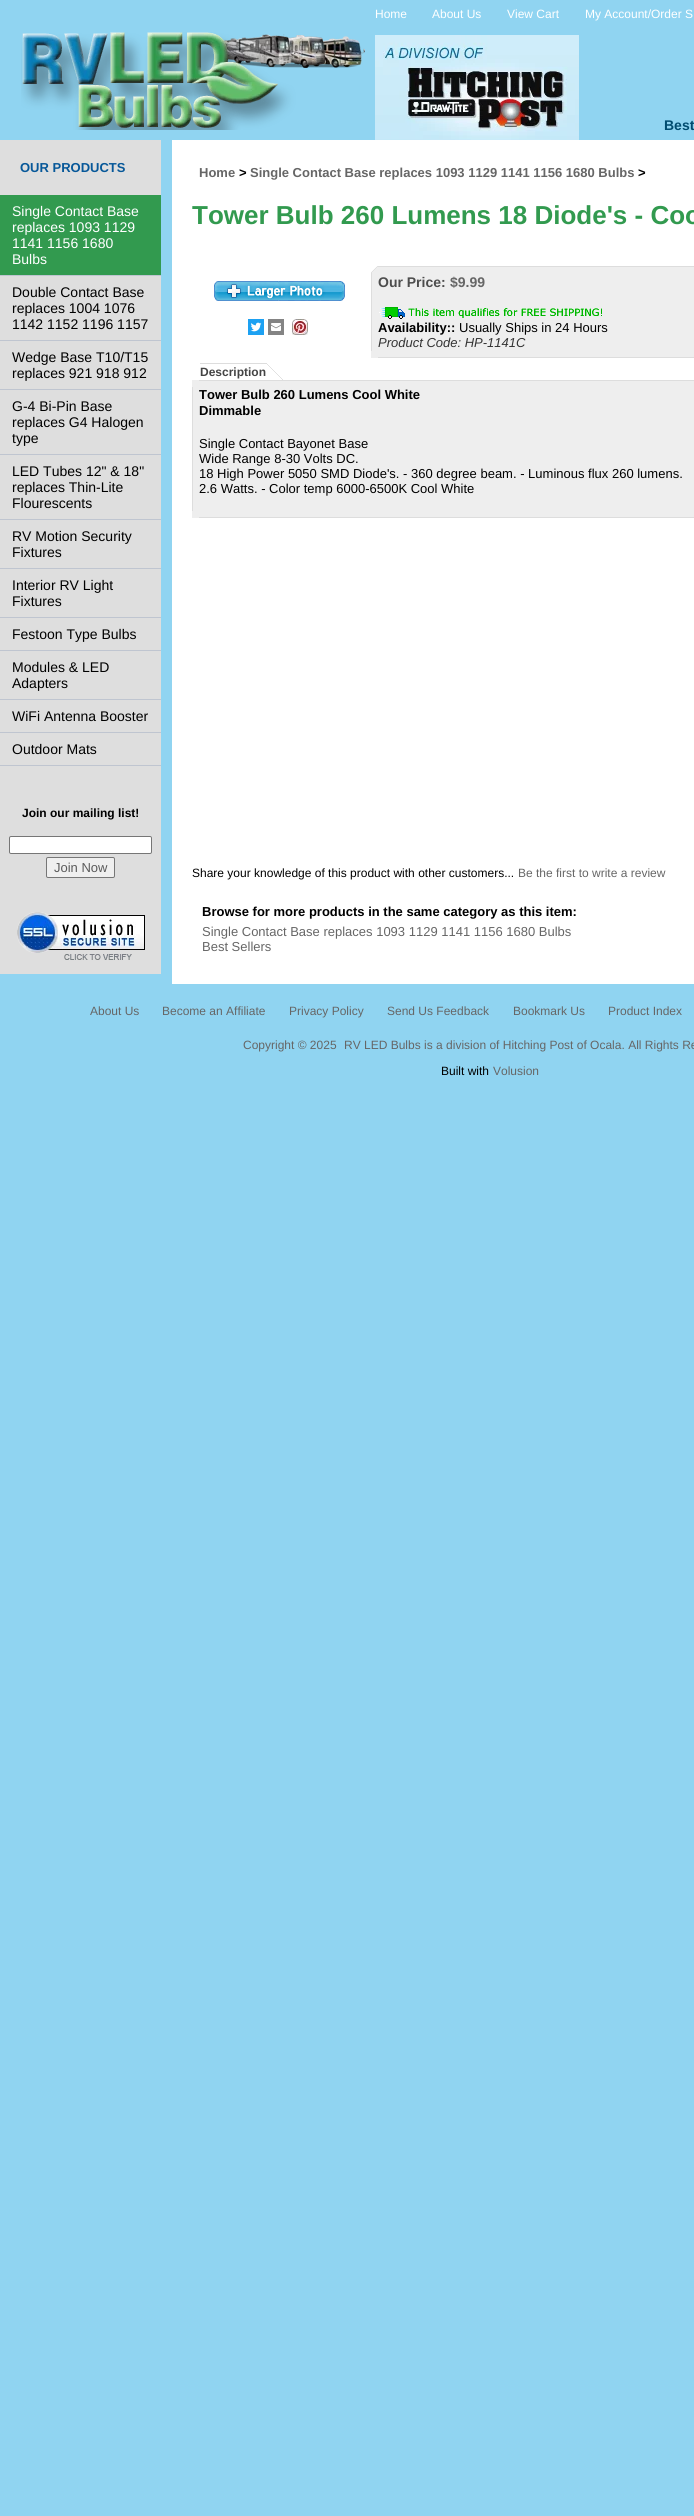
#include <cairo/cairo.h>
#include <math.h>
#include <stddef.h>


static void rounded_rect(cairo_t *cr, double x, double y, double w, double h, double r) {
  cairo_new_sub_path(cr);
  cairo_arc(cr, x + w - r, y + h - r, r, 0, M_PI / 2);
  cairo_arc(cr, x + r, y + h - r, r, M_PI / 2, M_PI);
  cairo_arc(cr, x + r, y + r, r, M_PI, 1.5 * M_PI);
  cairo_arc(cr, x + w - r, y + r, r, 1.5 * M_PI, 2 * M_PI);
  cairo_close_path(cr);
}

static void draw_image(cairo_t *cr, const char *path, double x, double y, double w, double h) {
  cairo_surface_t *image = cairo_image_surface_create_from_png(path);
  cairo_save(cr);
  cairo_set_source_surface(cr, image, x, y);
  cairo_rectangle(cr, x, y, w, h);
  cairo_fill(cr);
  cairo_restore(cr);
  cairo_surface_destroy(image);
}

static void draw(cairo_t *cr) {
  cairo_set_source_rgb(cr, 144 / 255.0, 212 / 255.0, 241 / 255.0);
  cairo_paint(cr);
  draw_image(cr, "images/1.png", 21, 32, 344, 98);
  draw_image(cr, "images/2.png", 375, 35, 204, 105);
  cairo_set_source_rgb(cr, 222 / 255.0, 222 / 255.0, 222 / 255.0);
  cairo_rectangle(cr, 0, 140, 161, 834);
  cairo_fill(cr);
  cairo_set_source_rgb(cr, 191 / 255.0, 197 / 255.0, 208 / 255.0);
  cairo_rectangle(cr, 0, 275, 161, 1);
  cairo_fill(cr);
  cairo_set_source_rgb(cr, 50 / 255.0, 154 / 255.0, 79 / 255.0);
  cairo_rectangle(cr, 0, 195, 161, 80);
  cairo_fill(cr);
  cairo_set_source_rgb(cr, 191 / 255.0, 197 / 255.0, 208 / 255.0);
  cairo_rectangle(cr, 0, 340, 161, 1);
  cairo_fill(cr);
  cairo_rectangle(cr, 0, 389, 161, 1);
  cairo_fill(cr);
  cairo_rectangle(cr, 0, 454, 161, 1);
  cairo_fill(cr);
  cairo_rectangle(cr, 0, 519, 161, 1);
  cairo_fill(cr);
  cairo_rectangle(cr, 0, 568, 161, 1);
  cairo_fill(cr);
  cairo_rectangle(cr, 0, 617, 161, 1);
  cairo_fill(cr);
  cairo_rectangle(cr, 0, 650, 161, 1);
  cairo_fill(cr);
  cairo_rectangle(cr, 0, 699, 161, 1);
  cairo_fill(cr);
  cairo_rectangle(cr, 0, 732, 161, 1);
  cairo_fill(cr);
  cairo_rectangle(cr, 0, 765, 161, 1);
  cairo_fill(cr);
  cairo_set_source_rgb(cr, 1, 1, 1);
  rounded_rect(cr, 9.5, 836.5, 142, 17, 1.5);
  cairo_fill_preserve(cr);
  cairo_set_source_rgb(cr, 118 / 255.0, 118 / 255.0, 118 / 255.0);
  cairo_set_line_width(cr, 1);
  cairo_stroke(cr);
  cairo_set_source_rgb(cr, 239 / 255.0, 239 / 255.0, 239 / 255.0);
  rounded_rect(cr, 46.5, 857.5, 68, 20, 1.5);
  cairo_fill_preserve(cr);
  cairo_set_source_rgb(cr, 118 / 255.0, 118 / 255.0, 118 / 255.0);
  cairo_stroke(cr);
  draw_image(cr, "images/3.png", 17, 912, 128, 48);
  cairo_set_source_rgb(cr, 1, 1, 1);
  cairo_rectangle(cr, 172, 140, 522, 844);
  cairo_fill(cr);
  draw_image(cr, "images/4.png", 214, 281, 131, 20);
  cairo_set_source_rgb(cr, 29 / 255.0, 161 / 255.0, 242 / 255.0);
  cairo_rectangle(cr, 248, 319, 16, 16);
  cairo_fill(cr);
  draw_image(cr, "images/5.png", 250, 322, 12, 10);
  cairo_set_source_rgb(cr, 132 / 255.0, 132 / 255.0, 132 / 255.0);
  cairo_rectangle(cr, 268, 319, 16, 16);
  cairo_fill(cr);
  draw_image(cr, "images/6.png", 271, 323, 10, 8);
  draw_image(cr, "images/7.png", 292, 319, 16, 16);
  cairo_set_source_rgb(cr, 238 / 255.0, 238 / 255.0, 238 / 255.0);
  cairo_rectangle(cr, 371, 267, 323, 91);
  cairo_fill(cr);
  draw_image(cr, "images/8.png", 371, 266, 7, 7);
  cairo_set_source_rgb(cr, 221 / 255.0, 221 / 255.0, 221 / 255.0);
  cairo_rectangle(cr, 378, 266, 316, 1);
  cairo_fill(cr);
  cairo_rectangle(cr, 371, 273, 1, 78);
  cairo_fill(cr);
  draw_image(cr, "images/9.png", 379, 307, 223, 12);
  cairo_rectangle(cr, 378, 357, 316, 1);
  cairo_fill(cr);
  cairo_rectangle(cr, 200, 363, 66, 1);
  cairo_fill(cr);
  draw_image(cr, "images/10.png", 266, 363, 17, 17);
  cairo_set_source_rgb(cr, 238 / 255.0, 238 / 255.0, 238 / 255.0);
  cairo_rectangle(cr, 192, 380, 502, 138);
  cairo_fill(cr);
  cairo_set_source_rgb(cr, 221 / 255.0, 221 / 255.0, 221 / 255.0);
  cairo_rectangle(cr, 199, 380, 495, 1);
  cairo_fill(cr);
  cairo_rectangle(cr, 192, 387, 1, 124);
  cairo_fill(cr);
  cairo_rectangle(cr, 199, 517, 495, 1);
  cairo_fill(cr);
  cairo_select_font_face(cr, "Liberation Sans", CAIRO_FONT_SLANT_NORMAL, CAIRO_FONT_WEIGHT_NORMAL);
  cairo_set_font_size(cr, 12);
  cairo_set_source_rgb(cr, 1, 1, 1);
  cairo_move_to(cr, 375, 18);
  cairo_show_text(cr, "Home");
  cairo_move_to(cr, 432, 18);
  cairo_show_text(cr, "About Us");
  cairo_move_to(cr, 507, 18);
  cairo_show_text(cr, "View Cart");
  cairo_move_to(cr, 585, 18);
  cairo_show_text(cr, "My Account/Order S");
  cairo_select_font_face(cr, "Liberation Sans", CAIRO_FONT_SLANT_NORMAL, CAIRO_FONT_WEIGHT_BOLD);
  cairo_set_font_size(cr, 14);
  cairo_set_source_rgb(cr, 0, 75 / 255.0, 111 / 255.0);
  cairo_move_to(cr, 664, 130);
  cairo_show_text(cr, "Best");
  cairo_set_font_size(cr, 13);
  cairo_set_source_rgb(cr, 7 / 255.0, 88 / 255.0, 153 / 255.0);
  cairo_move_to(cr, 20, 172);
  cairo_show_text(cr, "OUR PRODUCTS");
  cairo_select_font_face(cr, "Liberation Sans", CAIRO_FONT_SLANT_NORMAL, CAIRO_FONT_WEIGHT_NORMAL);
  cairo_set_font_size(cr, 14);
  cairo_set_source_rgb(cr, 1, 1, 1);
  cairo_move_to(cr, 12, 216);
  cairo_show_text(cr, "Single Contact Base");
  cairo_move_to(cr, 12, 232);
  cairo_show_text(cr, "replaces 1093 1129");
  cairo_move_to(cr, 12, 248);
  cairo_show_text(cr, "1141 1156 1680");
  cairo_move_to(cr, 12, 264);
  cairo_show_text(cr, "Bulbs");
  cairo_set_source_rgb(cr, 0, 0, 0);
  cairo_move_to(cr, 12, 297);
  cairo_show_text(cr, "Double Contact Base");
  cairo_move_to(cr, 12, 313);
  cairo_show_text(cr, "replaces 1004 1076");
  cairo_move_to(cr, 12, 329);
  cairo_show_text(cr, "1142 1152 1196 1157");
  cairo_move_to(cr, 12, 362);
  cairo_show_text(cr, "Wedge Base T10/T15");
  cairo_move_to(cr, 12, 378);
  cairo_show_text(cr, "replaces 921 918 912");
  cairo_move_to(cr, 12, 411);
  cairo_show_text(cr, "G-4 Bi-Pin Base");
  cairo_move_to(cr, 12, 427);
  cairo_show_text(cr, "replaces G4 Halogen");
  cairo_move_to(cr, 12, 443);
  cairo_show_text(cr, "type");
  cairo_move_to(cr, 12, 476);
  cairo_show_text(cr, "LED Tubes 12\" & 18\"");
  cairo_move_to(cr, 12, 492);
  cairo_show_text(cr, "replaces Thin-Lite");
  cairo_move_to(cr, 12, 508);
  cairo_show_text(cr, "Flourescents");
  cairo_move_to(cr, 12, 541);
  cairo_show_text(cr, "RV Motion Security");
  cairo_move_to(cr, 12, 557);
  cairo_show_text(cr, "Fixtures");
  cairo_move_to(cr, 12, 590);
  cairo_show_text(cr, "Interior RV Light");
  cairo_move_to(cr, 12, 606);
  cairo_show_text(cr, "Fixtures");
  cairo_move_to(cr, 12, 639);
  cairo_show_text(cr, "Festoon Type Bulbs");
  cairo_move_to(cr, 12, 672);
  cairo_show_text(cr, "Modules & LED");
  cairo_move_to(cr, 12, 688);
  cairo_show_text(cr, "Adapters");
  cairo_move_to(cr, 12, 721);
  cairo_show_text(cr, "WiFi Antenna Booster");
  cairo_move_to(cr, 12, 754);
  cairo_show_text(cr, "Outdoor Mats");
  cairo_select_font_face(cr, "Liberation Sans", CAIRO_FONT_SLANT_NORMAL, CAIRO_FONT_WEIGHT_BOLD);
  cairo_set_font_size(cr, 12);
  cairo_move_to(cr, 22, 817);
  cairo_show_text(cr, "Join our mailing list!");
  cairo_select_font_face(cr, "Liberation Sans", CAIRO_FONT_SLANT_NORMAL, CAIRO_FONT_WEIGHT_NORMAL);
  cairo_set_font_size(cr, 13);
  cairo_set_source_rgb(cr, 90 / 255.0, 90 / 255.0, 90 / 255.0);
  cairo_move_to(cr, 54, 872);
  cairo_show_text(cr, "Join Now");
  cairo_select_font_face(cr, "Liberation Sans", CAIRO_FONT_SLANT_NORMAL, CAIRO_FONT_WEIGHT_BOLD);
  cairo_set_source_rgb(cr, 102 / 255.0, 102 / 255.0, 102 / 255.0);
  cairo_move_to(cr, 199, 177);
  cairo_show_text(cr, "Home");
  cairo_set_source_rgb(cr, 0, 0, 0);
  cairo_move_to(cr, 239, 177);
  cairo_show_text(cr, ">");
  cairo_set_source_rgb(cr, 102 / 255.0, 102 / 255.0, 102 / 255.0);
  cairo_move_to(cr, 250, 177);
  cairo_show_text(cr, "Single Contact Base replaces 1093 1129 1141 1156 1680 Bulbs");
  cairo_set_source_rgb(cr, 0, 0, 0);
  cairo_move_to(cr, 638, 177);
  cairo_show_text(cr, ">");
  cairo_set_font_size(cr, 26);
  cairo_set_source_rgb(cr, 50 / 255.0, 154 / 255.0, 79 / 255.0);
  cairo_move_to(cr, 192, 224);
  cairo_show_text(cr, "Tower Bulb 260 Lumens 18 Diode's - Coo");
  cairo_set_font_size(cr, 14);
  cairo_set_source_rgb(cr, 77 / 255.0, 77 / 255.0, 77 / 255.0);
  cairo_move_to(cr, 378, 287);
  cairo_show_text(cr, "Our Price:");
  cairo_set_source_rgb(cr, 102 / 255.0, 102 / 255.0, 102 / 255.0);
  cairo_move_to(cr, 450, 287);
  cairo_show_text(cr, "$9.99");
  cairo_set_font_size(cr, 13);
  cairo_set_source_rgb(cr, 0, 0, 0);
  cairo_move_to(cr, 378, 332);
  cairo_show_text(cr, "Availability::");
  cairo_select_font_face(cr, "Liberation Sans", CAIRO_FONT_SLANT_NORMAL, CAIRO_FONT_WEIGHT_NORMAL);
  cairo_move_to(cr, 459, 332);
  cairo_show_text(cr, "Usually Ships in 24 Hours");
  cairo_select_font_face(cr, "Liberation Sans", CAIRO_FONT_SLANT_ITALIC, CAIRO_FONT_WEIGHT_NORMAL);
  cairo_set_source_rgb(cr, 51 / 255.0, 51 / 255.0, 51 / 255.0);
  cairo_move_to(cr, 378, 347);
  cairo_show_text(cr, "Product Code: HP-1141C");
  cairo_select_font_face(cr, "Liberation Sans", CAIRO_FONT_SLANT_NORMAL, CAIRO_FONT_WEIGHT_BOLD);
  cairo_set_font_size(cr, 12);
  cairo_set_source_rgb(cr, 68 / 255.0, 68 / 255.0, 68 / 255.0);
  cairo_move_to(cr, 200, 376);
  cairo_show_text(cr, "Description");
  cairo_set_font_size(cr, 13);
  cairo_set_source_rgb(cr, 0, 0, 0);
  cairo_move_to(cr, 199, 399);
  cairo_show_text(cr, "Tower Bulb 260 Lumens Cool White");
  cairo_move_to(cr, 199, 415);
  cairo_show_text(cr, "Dimmable");
  cairo_select_font_face(cr, "Liberation Sans", CAIRO_FONT_SLANT_NORMAL, CAIRO_FONT_WEIGHT_NORMAL);
  cairo_move_to(cr, 199, 448);
  cairo_show_text(cr, "Single Contact Bayonet Base");
  cairo_move_to(cr, 199, 463);
  cairo_show_text(cr, "Wide Range 8-30 Volts DC.");
  cairo_move_to(cr, 199, 478);
  cairo_show_text(cr, "18 High Power 5050 SMD Diode's. - 360 degree beam. - Luminous flux 260 lumens.");
  cairo_move_to(cr, 199, 493);
  cairo_show_text(cr, "2.6 Watts. - Color temp 6000-6500K Cool White");
  cairo_set_font_size(cr, 12);
  cairo_move_to(cr, 192, 877);
  cairo_show_text(cr, "Share your knowledge of this product with other customers...");
  cairo_set_source_rgb(cr, 102 / 255.0, 102 / 255.0, 102 / 255.0);
  cairo_move_to(cr, 518, 877);
  cairo_show_text(cr, "Be the first to write a review");
  cairo_select_font_face(cr, "Liberation Sans", CAIRO_FONT_SLANT_NORMAL, CAIRO_FONT_WEIGHT_BOLD);
  cairo_set_font_size(cr, 13);
  cairo_set_source_rgb(cr, 0, 0, 0);
  cairo_move_to(cr, 202, 916);
  cairo_show_text(cr, "Browse for more products in the same category as this item:");
  cairo_select_font_face(cr, "Liberation Sans", CAIRO_FONT_SLANT_NORMAL, CAIRO_FONT_WEIGHT_NORMAL);
  cairo_set_source_rgb(cr, 102 / 255.0, 102 / 255.0, 102 / 255.0);
  cairo_move_to(cr, 202, 936);
  cairo_show_text(cr, "Single Contact Base replaces 1093 1129 1141 1156 1680 Bulbs");
  cairo_move_to(cr, 202, 951);
  cairo_show_text(cr, "Best Sellers");
  cairo_set_font_size(cr, 12);
  cairo_move_to(cr, 90, 1015);
  cairo_show_text(cr, "About Us");
  cairo_move_to(cr, 162, 1015);
  cairo_show_text(cr, "Become an Affiliate");
  cairo_move_to(cr, 289, 1015);
  cairo_show_text(cr, "Privacy Policy");
  cairo_move_to(cr, 387, 1015);
  cairo_show_text(cr, "Send Us Feedback");
  cairo_move_to(cr, 513, 1015);
  cairo_show_text(cr, "Bookmark Us");
  cairo_move_to(cr, 608, 1015);
  cairo_show_text(cr, "Product Index");
  cairo_move_to(cr, 243, 1049);
  cairo_show_text(cr, "Copyright © 2025");
  cairo_move_to(cr, 344, 1049);
  cairo_show_text(cr, "RV LED Bulbs is a division of Hitching Post of Ocala. All Rights Re");
  cairo_set_source_rgb(cr, 0, 0, 0);
  cairo_move_to(cr, 441, 1075);
  cairo_show_text(cr, "Built with");
  cairo_set_source_rgb(cr, 102 / 255.0, 102 / 255.0, 102 / 255.0);
  cairo_move_to(cr, 493, 1075);
  cairo_show_text(cr, "Volusion");
}

int main(void) {
  cairo_surface_t *surface = cairo_image_surface_create(CAIRO_FORMAT_RGB24, 694, 2516);
  cairo_t *cr = cairo_create(surface);
  cairo_font_options_t *options = cairo_font_options_create();
  cairo_font_options_set_hint_metrics(options, CAIRO_HINT_METRICS_OFF);
  cairo_font_options_set_hint_style(options, CAIRO_HINT_STYLE_NONE);
  cairo_set_font_options(cr, options);
  cairo_set_miter_limit(cr, 4);
  draw(cr);
  cairo_surface_write_to_png(surface, "out.png");
  cairo_font_options_destroy(options);
  cairo_destroy(cr);
  cairo_surface_destroy(surface);
  return 0;
}
